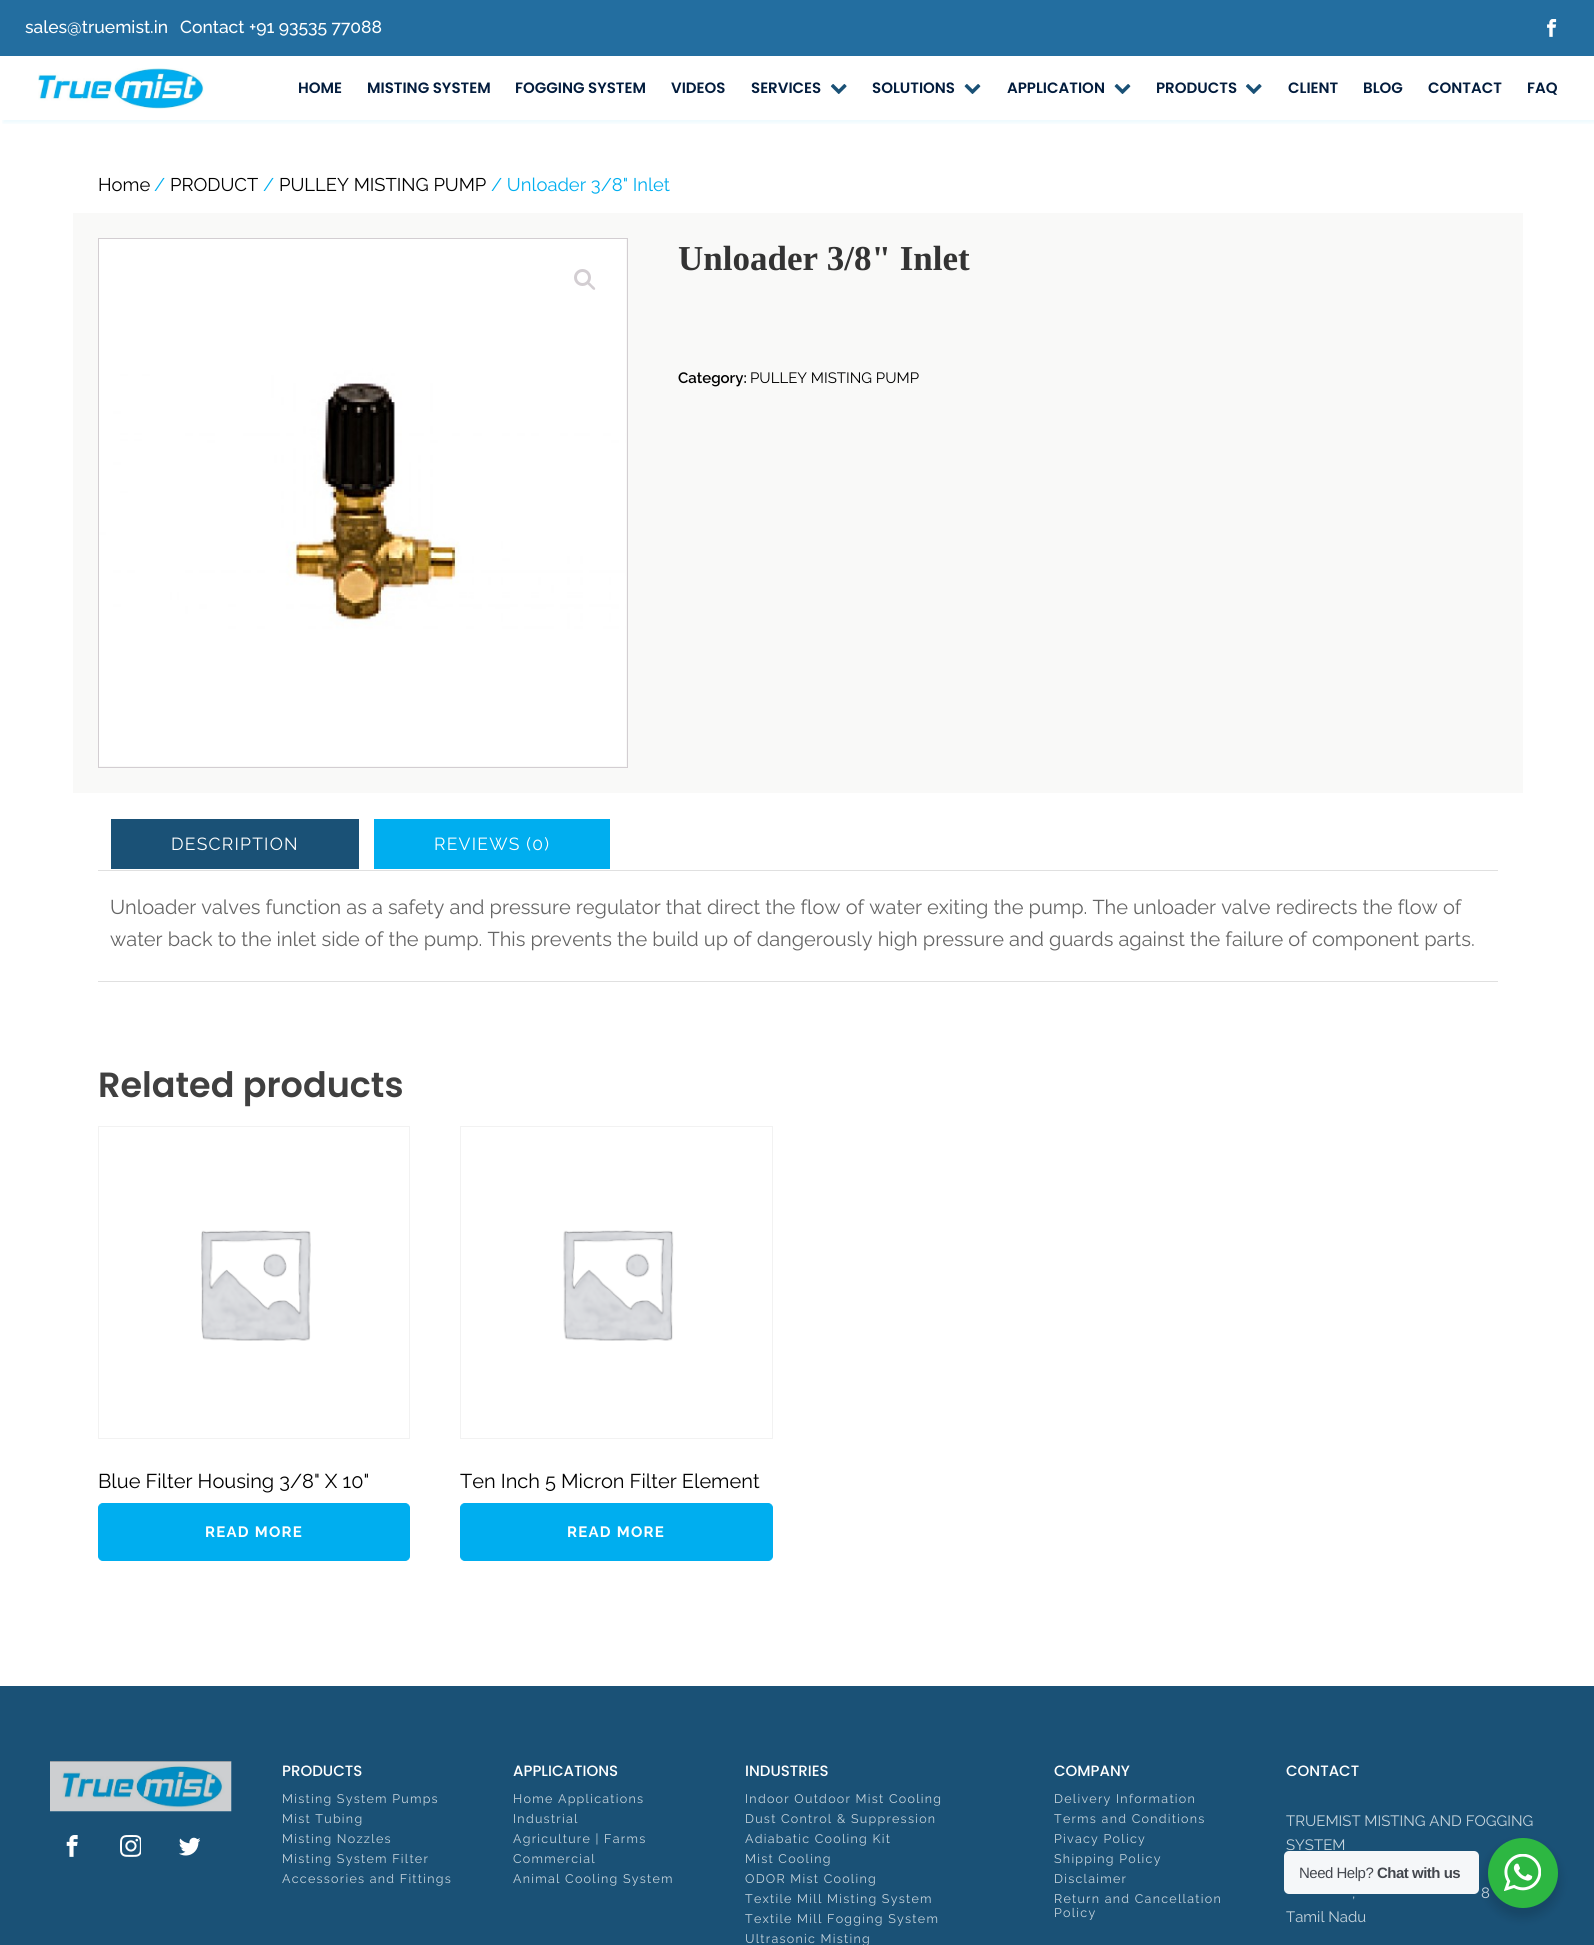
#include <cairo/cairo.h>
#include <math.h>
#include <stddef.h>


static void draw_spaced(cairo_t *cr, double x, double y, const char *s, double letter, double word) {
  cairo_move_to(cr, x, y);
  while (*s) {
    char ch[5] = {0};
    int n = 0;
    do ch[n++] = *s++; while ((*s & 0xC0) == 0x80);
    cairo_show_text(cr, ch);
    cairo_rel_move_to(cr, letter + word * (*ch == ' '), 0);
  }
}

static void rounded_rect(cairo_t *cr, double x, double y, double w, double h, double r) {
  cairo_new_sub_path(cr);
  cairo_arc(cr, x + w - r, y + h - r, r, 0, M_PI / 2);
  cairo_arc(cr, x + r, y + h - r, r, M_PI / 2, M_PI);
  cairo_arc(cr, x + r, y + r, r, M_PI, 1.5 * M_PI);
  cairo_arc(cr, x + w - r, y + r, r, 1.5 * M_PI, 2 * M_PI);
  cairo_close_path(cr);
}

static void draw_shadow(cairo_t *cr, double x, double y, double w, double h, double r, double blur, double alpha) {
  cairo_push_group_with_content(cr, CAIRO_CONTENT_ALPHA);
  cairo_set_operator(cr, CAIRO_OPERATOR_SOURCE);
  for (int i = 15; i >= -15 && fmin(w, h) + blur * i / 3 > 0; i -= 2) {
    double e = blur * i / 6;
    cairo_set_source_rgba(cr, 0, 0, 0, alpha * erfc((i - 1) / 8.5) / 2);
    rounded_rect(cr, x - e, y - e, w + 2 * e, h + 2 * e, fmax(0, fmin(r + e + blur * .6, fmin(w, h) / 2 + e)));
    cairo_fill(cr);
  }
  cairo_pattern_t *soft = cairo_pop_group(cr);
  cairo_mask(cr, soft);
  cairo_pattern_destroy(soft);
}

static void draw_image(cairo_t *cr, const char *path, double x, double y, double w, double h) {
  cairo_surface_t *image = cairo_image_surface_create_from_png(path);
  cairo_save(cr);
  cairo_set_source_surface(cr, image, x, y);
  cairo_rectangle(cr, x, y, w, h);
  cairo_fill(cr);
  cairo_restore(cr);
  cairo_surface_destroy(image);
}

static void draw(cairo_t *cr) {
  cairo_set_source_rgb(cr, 1, 1, 1);
  cairo_paint(cr);
  cairo_save(cr);
  cairo_rectangle(cr, 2, 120, 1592, 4);
  cairo_clip(cr);
  cairo_set_source_rgb(cr, 0, 174 / 255.0, 239 / 255.0);
  draw_shadow(cr, 3, 3, 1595, 120, 0, 2, 0.07);
  cairo_restore(cr);
  cairo_set_source_rgb(cr, 35 / 255.0, 110 / 255.0, 160 / 255.0);
  cairo_rectangle(cr, 0, 0, 1594, 56);
  cairo_fill(cr);
  draw_image(cr, "images/1.png", 1547, 19, 10, 18);
  draw_image(cr, "images/2.png", 38, 68, 166, 41);
  draw_image(cr, "images/3.png", 830, 84, 17, 10);
  draw_image(cr, "images/4.png", 964, 84, 17, 10);
  draw_image(cr, "images/4.png", 1114, 84, 17, 10);
  draw_image(cr, "images/3.png", 1245, 84, 17, 10);
  cairo_set_source_rgb(cr, 249 / 255.0, 249 / 255.0, 248 / 255.0);
  cairo_rectangle(cr, 73, 213, 1450, 580);
  cairo_fill(cr);
  cairo_rectangle(cr, 98.5, 238.5, 529, 529);
  cairo_set_source_rgb(cr, 211 / 255.0, 206 / 255.0, 210 / 255.0);
  cairo_set_line_width(cr, 1);
  cairo_stroke(cr);
  draw_image(cr, "images/5.png", 99, 239, 527, 527);
  cairo_arc(cr, 582.5, 277.5, 7, 0, 2 * M_PI);
  cairo_set_line_width(cr, 3);
  cairo_stroke(cr);
  cairo_new_path(cr);
  cairo_move_to(cr, 587.5, 282.5);
  cairo_curve_to(cr, 589, 281, 591.5, 284.5, 592, 285);
  cairo_curve_to(cr, 593, 286, 596, 288, 595, 289.5);
  cairo_curve_to(cr, 593.5, 291, 591, 287.5, 590.5, 287);
  cairo_curve_to(cr, 589.5, 286, 586.5, 284, 587.5, 282.5);
  cairo_close_path(cr);
  cairo_fill(cr);
  cairo_set_source_rgb(cr, 26 / 255.0, 81 / 255.0, 118 / 255.0);
  cairo_rectangle(cr, 111, 819, 248, 50);
  cairo_fill(cr);
  cairo_set_source_rgb(cr, 0, 174 / 255.0, 239 / 255.0);
  cairo_rectangle(cr, 374, 819, 236, 50);
  cairo_fill(cr);
  cairo_set_source_rgb(cr, 224 / 255.0, 224 / 255.0, 224 / 255.0);
  cairo_rectangle(cr, 98, 870, 1400, 1);
  cairo_fill(cr);
  cairo_rectangle(cr, 98, 981, 1400, 1);
  cairo_fill(cr);
  cairo_rectangle(cr, 98.5, 1126.5, 311, 312);
  cairo_set_source_rgb(cr, 242 / 255.0, 242 / 255.0, 242 / 255.0);
  cairo_set_line_width(cr, 1);
  cairo_stroke(cr);
  draw_image(cr, "images/6.png", 201, 1230, 110, 111);
  cairo_set_source_rgb(cr, 0, 174 / 255.0, 239 / 255.0);
  rounded_rect(cr, 98.5, 1503.5, 311, 57, 4.5);
  cairo_fill_preserve(cr);
  cairo_stroke(cr);
  cairo_rectangle(cr, 460.5, 1126.5, 312, 312);
  cairo_set_source_rgb(cr, 242 / 255.0, 242 / 255.0, 242 / 255.0);
  cairo_stroke(cr);
  draw_image(cr, "images/7.png", 563, 1230, 111, 111);
  cairo_set_source_rgb(cr, 0, 174 / 255.0, 239 / 255.0);
  rounded_rect(cr, 460.5, 1503.5, 312, 57, 4.5);
  cairo_fill_preserve(cr);
  cairo_stroke(cr);
  cairo_set_source_rgb(cr, 26 / 255.0, 81 / 255.0, 118 / 255.0);
  cairo_rectangle(cr, 0, 1686, 1594, 259);
  cairo_fill(cr);
  cairo_set_source_rgb(cr, 5 / 255.0, 16 / 255.0, 24 / 255.0);
  cairo_rectangle(cr, 50, 1761, 181, 50);
  cairo_fill(cr);
  draw_image(cr, "images/8.png", 50, 1761, 182, 51);
  draw_image(cr, "images/9.png", 66, 1835, 12, 22);
  draw_image(cr, "images/10.png", 120, 1835, 21, 22);
  draw_image(cr, "images/11.png", 179, 1837, 21, 19);
  cairo_set_source_rgb(cr, 0, 0, 0);
  draw_shadow(cr, 1485, 1843, 75, 75, 37.5, 5, 0.14);
  cairo_set_source_rgb(cr, 245 / 255.0, 247 / 255.0, 249 / 255.0);
  rounded_rect(cr, 1284, 1851, 195, 43, 5);
  cairo_fill(cr);
  cairo_select_font_face(cr, "Raleway Medium", CAIRO_FONT_SLANT_NORMAL, CAIRO_FONT_WEIGHT_NORMAL);
  cairo_set_font_size(cr, 17.5);
  cairo_set_source_rgb(cr, 1, 1, 1);
  cairo_move_to(cr, 25, 33);
  cairo_show_text(cr, "sales@truemist.in");
  cairo_move_to(cr, 180, 33);
  cairo_show_text(cr, "Contact +91 93535 77088");
  cairo_select_font_face(cr, "Poppins SemiBold", CAIRO_FONT_SLANT_NORMAL, CAIRO_FONT_WEIGHT_NORMAL);
  cairo_set_font_size(cr, 15);
  cairo_set_source_rgb(cr, 2 / 255.0, 28 / 255.0, 61 / 255.0);
  cairo_move_to(cr, 298, 93);
  cairo_show_text(cr, "HOME");
  cairo_move_to(cr, 367, 93);
  cairo_show_text(cr, "MISTING SYSTEM");
  cairo_move_to(cr, 515, 93);
  cairo_show_text(cr, "FOGGING SYSTEM");
  cairo_move_to(cr, 671, 93);
  cairo_show_text(cr, "VIDEOS");
  cairo_move_to(cr, 751, 93);
  cairo_show_text(cr, "SERVICES");
  cairo_move_to(cr, 872, 93);
  cairo_show_text(cr, "SOLUTIONS");
  cairo_move_to(cr, 1007, 93);
  cairo_show_text(cr, "APPLICATION");
  cairo_move_to(cr, 1156, 93);
  cairo_show_text(cr, "PRODUCTS");
  cairo_move_to(cr, 1288, 93);
  cairo_show_text(cr, "CLIENT");
  cairo_move_to(cr, 1363, 93);
  cairo_show_text(cr, "BLOG");
  cairo_move_to(cr, 1428, 93);
  cairo_show_text(cr, "CONTACT");
  cairo_move_to(cr, 1527, 93);
  cairo_show_text(cr, "FAQ");
  cairo_select_font_face(cr, "Raleway", CAIRO_FONT_SLANT_NORMAL, CAIRO_FONT_WEIGHT_NORMAL);
  cairo_set_font_size(cr, 18.4);
  cairo_set_source_rgb(cr, 0, 0, 0);
  cairo_move_to(cr, 98, 191);
  cairo_show_text(cr, "Home");
  cairo_set_source_rgb(cr, 0, 174 / 255.0, 239 / 255.0);
  cairo_move_to(cr, 154, 191);
  cairo_show_text(cr, "/");
  cairo_set_source_rgb(cr, 0, 0, 0);
  cairo_move_to(cr, 170, 191);
  cairo_show_text(cr, "PRODUCT");
  cairo_set_source_rgb(cr, 0, 174 / 255.0, 239 / 255.0);
  cairo_move_to(cr, 263, 191);
  cairo_show_text(cr, "/");
  cairo_set_source_rgb(cr, 0, 0, 0);
  cairo_move_to(cr, 279, 191);
  cairo_show_text(cr, "PULLEY MISTING PUMP");
  cairo_set_source_rgb(cr, 0, 174 / 255.0, 239 / 255.0);
  cairo_move_to(cr, 491, 191);
  cairo_show_text(cr, "/ Unloader 3/8\" Inlet");
  cairo_select_font_face(cr, "Liberation Serif", CAIRO_FONT_SLANT_NORMAL, CAIRO_FONT_WEIGHT_BOLD);
  cairo_set_font_size(cr, 35);
  cairo_set_source_rgb(cr, 51 / 255.0, 51 / 255.0, 51 / 255.0);
  cairo_move_to(cr, 678, 270);
  cairo_show_text(cr, "Unloader 3/8\" Inlet");
  cairo_select_font_face(cr, "Raleway SemiBold", CAIRO_FONT_SLANT_NORMAL, CAIRO_FONT_WEIGHT_NORMAL);
  cairo_set_font_size(cr, 15);
  cairo_set_source_rgb(cr, 0, 0, 0);
  cairo_move_to(cr, 678, 383);
  cairo_show_text(cr, "Category:");
  cairo_select_font_face(cr, "Raleway", CAIRO_FONT_SLANT_NORMAL, CAIRO_FONT_WEIGHT_NORMAL);
  cairo_move_to(cr, 750, 383);
  cairo_show_text(cr, "PULLEY MISTING PUMP");
  cairo_set_font_size(cr, 17.5);
  cairo_set_source_rgb(cr, 1, 1, 1);
  draw_spaced(cr, 171, 850, "DESCRIPTION", 1.25, 0);
  draw_spaced(cr, 434, 850, "REVIEWS (0)", 1.25, 0);
  cairo_set_font_size(cr, 20);
  cairo_set_source_rgb(cr, 102 / 255.0, 102 / 255.0, 102 / 255.0);
  cairo_move_to(cr, 110, 914);
  cairo_show_text(cr, "Unloader valves function as a safety and pressure regulator that direct the flow of water exiting the pump. The unloader valve redirects the flow of");
  cairo_move_to(cr, 110, 946);
  cairo_show_text(cr, "water back to the inlet side of the pump. This prevents the build up of dangerously high pressure and guards against the failure of component parts.");
  cairo_select_font_face(cr, "Poppins SemiBold", CAIRO_FONT_SLANT_NORMAL, CAIRO_FONT_WEIGHT_NORMAL);
  cairo_set_font_size(cr, 35);
  cairo_set_source_rgb(cr, 64 / 255.0, 64 / 255.0, 64 / 255.0);
  cairo_move_to(cr, 98, 1097);
  cairo_show_text(cr, "Related products");
  cairo_select_font_face(cr, "Raleway", CAIRO_FONT_SLANT_NORMAL, CAIRO_FONT_WEIGHT_NORMAL);
  cairo_set_font_size(cr, 20);
  cairo_set_source_rgb(cr, 0, 0, 0);
  cairo_move_to(cr, 98, 1488);
  cairo_show_text(cr, "Blue Filter Housing 3/8\" X 10\"");
  cairo_select_font_face(cr, "Raleway", CAIRO_FONT_SLANT_NORMAL, CAIRO_FONT_WEIGHT_BOLD);
  cairo_set_font_size(cr, 15);
  cairo_set_source_rgb(cr, 1, 1, 1);
  draw_spaced(cr, 205, 1537, "READ MORE", 1.25, 0);
  cairo_select_font_face(cr, "Raleway", CAIRO_FONT_SLANT_NORMAL, CAIRO_FONT_WEIGHT_NORMAL);
  cairo_set_font_size(cr, 20);
  cairo_set_source_rgb(cr, 0, 0, 0);
  cairo_move_to(cr, 460, 1488);
  cairo_show_text(cr, "Ten Inch 5 Micron Filter Element");
  cairo_select_font_face(cr, "Raleway", CAIRO_FONT_SLANT_NORMAL, CAIRO_FONT_WEIGHT_BOLD);
  cairo_set_font_size(cr, 15);
  cairo_set_source_rgb(cr, 1, 1, 1);
  draw_spaced(cr, 567, 1537, "READ MORE", 1.25, 0);
  cairo_select_font_face(cr, "Poppins Medium", CAIRO_FONT_SLANT_NORMAL, CAIRO_FONT_WEIGHT_NORMAL);
  cairo_move_to(cr, 282, 1776);
  cairo_show_text(cr, "PRODUCTS");
  cairo_select_font_face(cr, "Raleway", CAIRO_FONT_SLANT_NORMAL, CAIRO_FONT_WEIGHT_NORMAL);
  cairo_set_font_size(cr, 12.5);
  cairo_set_source_rgb(cr, 198 / 255.0, 212 / 255.0, 221 / 255.0);
  draw_spaced(cr, 282, 1803, "Misting System Pumps", 1.25, 0);
  draw_spaced(cr, 282, 1823, "Mist Tubing", 1.25, 0);
  draw_spaced(cr, 282, 1843, "Misting Nozzles", 1.25, 0);
  draw_spaced(cr, 282, 1863, "Misting System Filter", 1.25, 0);
  draw_spaced(cr, 282, 1883, "Accessories and Fittings", 1.25, 0);
  cairo_select_font_face(cr, "Poppins Medium", CAIRO_FONT_SLANT_NORMAL, CAIRO_FONT_WEIGHT_NORMAL);
  cairo_set_font_size(cr, 15);
  cairo_set_source_rgb(cr, 1, 1, 1);
  cairo_move_to(cr, 513, 1776);
  cairo_show_text(cr, "APPLICATIONS");
  cairo_select_font_face(cr, "Raleway", CAIRO_FONT_SLANT_NORMAL, CAIRO_FONT_WEIGHT_NORMAL);
  cairo_set_font_size(cr, 12.5);
  cairo_set_source_rgb(cr, 198 / 255.0, 212 / 255.0, 221 / 255.0);
  draw_spaced(cr, 513, 1803, "Home Applications", 1.25, 0);
  draw_spaced(cr, 513, 1823, "Industrial", 1.25, 0);
  draw_spaced(cr, 513, 1843, "Agriculture | Farms", 1.25, 0);
  draw_spaced(cr, 513, 1863, "Commercial", 1.25, 0);
  draw_spaced(cr, 513, 1883, "Animal Cooling System", 1.25, 0);
  cairo_select_font_face(cr, "Poppins Medium", CAIRO_FONT_SLANT_NORMAL, CAIRO_FONT_WEIGHT_NORMAL);
  cairo_set_font_size(cr, 15);
  cairo_set_source_rgb(cr, 1, 1, 1);
  cairo_move_to(cr, 745, 1776);
  cairo_show_text(cr, "INDUSTRIES");
  cairo_select_font_face(cr, "Raleway", CAIRO_FONT_SLANT_NORMAL, CAIRO_FONT_WEIGHT_NORMAL);
  cairo_set_font_size(cr, 12.5);
  cairo_set_source_rgb(cr, 198 / 255.0, 212 / 255.0, 221 / 255.0);
  draw_spaced(cr, 745, 1803, "Indoor Outdoor Mist Cooling", 1.25, 0);
  draw_spaced(cr, 745, 1823, "Dust Control & Suppression", 1.25, 0);
  draw_spaced(cr, 745, 1843, "Adiabatic Cooling Kit", 1.25, 0);
  draw_spaced(cr, 745, 1863, "Mist Cooling", 1.25, 0);
  draw_spaced(cr, 745, 1883, "ODOR Mist Cooling", 1.25, 0);
  draw_spaced(cr, 745, 1903, "Textile Mill Misting System", 1.25, 0);
  draw_spaced(cr, 745, 1923, "Textile Mill Fogging System", 1.25, 0);
  draw_spaced(cr, 745, 1943, "Ultrasonic Misting", 1.25, 0);
  cairo_select_font_face(cr, "Poppins Medium", CAIRO_FONT_SLANT_NORMAL, CAIRO_FONT_WEIGHT_NORMAL);
  cairo_set_font_size(cr, 15);
  cairo_set_source_rgb(cr, 1, 1, 1);
  cairo_move_to(cr, 1054, 1776);
  cairo_show_text(cr, "COMPANY");
  cairo_select_font_face(cr, "Raleway", CAIRO_FONT_SLANT_NORMAL, CAIRO_FONT_WEIGHT_NORMAL);
  cairo_set_font_size(cr, 12.5);
  cairo_set_source_rgb(cr, 198 / 255.0, 212 / 255.0, 221 / 255.0);
  draw_spaced(cr, 1054, 1803, "Delivery Information", 1.25, 0);
  draw_spaced(cr, 1054, 1823, "Terms and Conditions", 1.25, 0);
  draw_spaced(cr, 1054, 1843, "Pivacy Policy", 1.25, 0);
  draw_spaced(cr, 1054, 1863, "Shipping Policy", 1.25, 0);
  draw_spaced(cr, 1054, 1883, "Disclaimer", 1.25, 0);
  draw_spaced(cr, 1054, 1903, "Return and Cancellation", 1.25, 0);
  draw_spaced(cr, 1054, 1917, "Policy", 1.25, 0);
  cairo_select_font_face(cr, "Poppins Medium", CAIRO_FONT_SLANT_NORMAL, CAIRO_FONT_WEIGHT_NORMAL);
  cairo_set_font_size(cr, 15);
  cairo_set_source_rgb(cr, 1, 1, 1);
  cairo_move_to(cr, 1286, 1776);
  cairo_show_text(cr, "CONTACT");
  cairo_select_font_face(cr, "Raleway", CAIRO_FONT_SLANT_NORMAL, CAIRO_FONT_WEIGHT_NORMAL);
  cairo_set_source_rgb(cr, 198 / 255.0, 212 / 255.0, 221 / 255.0);
  cairo_move_to(cr, 1286, 1826);
  cairo_show_text(cr, "TRUEMIST MISTING AND FOGGING");
  cairo_move_to(cr, 1286, 1850);
  cairo_show_text(cr, "SYSTEM");
  cairo_move_to(cr, 1352, 1898);
  cairo_show_text(cr, ",");
  cairo_move_to(cr, 1481, 1898);
  cairo_show_text(cr, "8");
  cairo_move_to(cr, 1286, 1922);
  cairo_show_text(cr, "Tamil Nadu");
  cairo_select_font_face(cr, "Liberation Sans", CAIRO_FONT_SLANT_NORMAL, CAIRO_FONT_WEIGHT_NORMAL);
  cairo_set_source_rgb(cr, 67 / 255.0, 71 / 255.0, 78 / 255.0);
  draw_spaced(cr, 1299, 1878, "Need Help?", -0.5, 0);
  cairo_select_font_face(cr, "Liberation Sans", CAIRO_FONT_SLANT_NORMAL, CAIRO_FONT_WEIGHT_BOLD);
  draw_spaced(cr, 1377, 1878, "Chat with us", -0.5, 0);
  cairo_set_source_rgb(cr, 45 / 255.0, 183 / 255.0, 66 / 255.0);
  cairo_new_path(cr);
  cairo_arc(cr, 1523, 1873, 35, 0, 2 * M_PI);
  cairo_fill(cr);
  draw_image(cr, "images/12.png", 1504, 1854, 37, 37);
}

int main(void) {
  cairo_surface_t *surface = cairo_image_surface_create(CAIRO_FORMAT_RGB24, 1594, 1945);
  cairo_t *cr = cairo_create(surface);
  cairo_font_options_t *options = cairo_font_options_create();
  cairo_font_options_set_hint_metrics(options, CAIRO_HINT_METRICS_OFF);
  cairo_font_options_set_hint_style(options, CAIRO_HINT_STYLE_NONE);
  cairo_set_font_options(cr, options);
  cairo_set_miter_limit(cr, 4);
  draw(cr);
  cairo_surface_write_to_png(surface, "out.png");
  cairo_font_options_destroy(options);
  cairo_destroy(cr);
  cairo_surface_destroy(surface);
  return 0;
}
